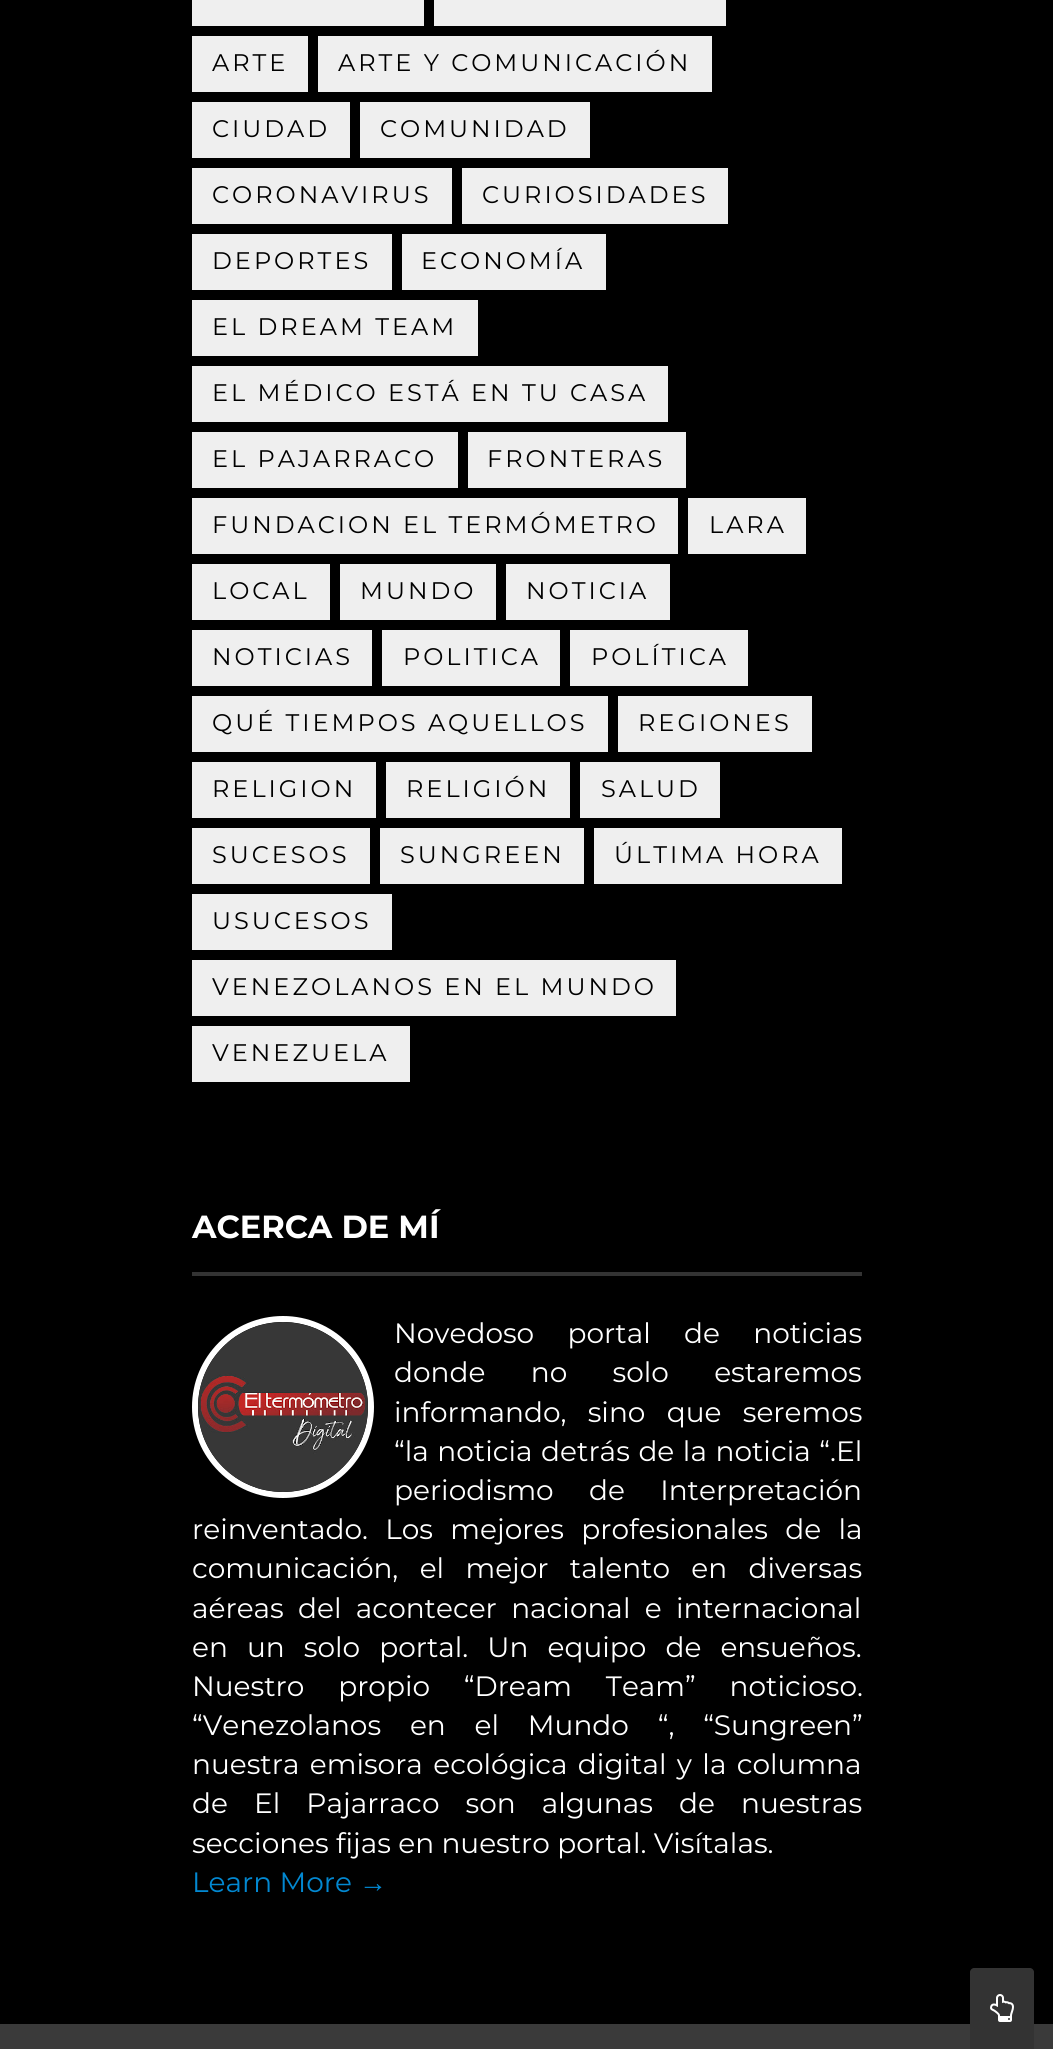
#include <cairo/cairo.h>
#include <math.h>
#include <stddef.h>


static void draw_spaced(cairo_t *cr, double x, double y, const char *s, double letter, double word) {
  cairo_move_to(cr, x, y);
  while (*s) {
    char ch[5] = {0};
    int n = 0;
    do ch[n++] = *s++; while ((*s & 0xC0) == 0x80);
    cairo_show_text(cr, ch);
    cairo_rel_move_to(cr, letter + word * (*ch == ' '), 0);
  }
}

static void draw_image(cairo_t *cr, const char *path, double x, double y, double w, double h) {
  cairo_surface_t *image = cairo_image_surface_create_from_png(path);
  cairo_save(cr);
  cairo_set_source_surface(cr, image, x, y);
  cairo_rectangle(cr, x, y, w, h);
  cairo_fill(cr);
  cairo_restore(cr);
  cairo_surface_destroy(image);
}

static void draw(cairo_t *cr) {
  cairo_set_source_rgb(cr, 0, 0, 0);
  cairo_paint(cr);
  cairo_set_source_rgb(cr, 239 / 255.0, 239 / 255.0, 239 / 255.0);
  cairo_rectangle(cr, 192, 0, 232, 26);
  cairo_fill(cr);
  cairo_rectangle(cr, 434, 0, 292, 26);
  cairo_fill(cr);
  cairo_rectangle(cr, 192, 36, 116, 56);
  cairo_fill(cr);
  cairo_rectangle(cr, 318, 36, 394, 56);
  cairo_fill(cr);
  cairo_rectangle(cr, 192, 102, 158, 56);
  cairo_fill(cr);
  cairo_rectangle(cr, 360, 102, 230, 56);
  cairo_fill(cr);
  cairo_rectangle(cr, 192, 168, 260, 56);
  cairo_fill(cr);
  cairo_rectangle(cr, 462, 168, 266, 56);
  cairo_fill(cr);
  cairo_rectangle(cr, 192, 234, 200, 56);
  cairo_fill(cr);
  cairo_rectangle(cr, 402, 234, 204, 56);
  cairo_fill(cr);
  cairo_rectangle(cr, 192, 300, 286, 56);
  cairo_fill(cr);
  cairo_rectangle(cr, 192, 366, 476, 56);
  cairo_fill(cr);
  cairo_rectangle(cr, 192, 432, 266, 56);
  cairo_fill(cr);
  cairo_rectangle(cr, 468, 432, 218, 56);
  cairo_fill(cr);
  cairo_rectangle(cr, 192, 498, 486, 56);
  cairo_fill(cr);
  cairo_rectangle(cr, 688, 498, 118, 56);
  cairo_fill(cr);
  cairo_rectangle(cr, 192, 564, 138, 56);
  cairo_fill(cr);
  cairo_rectangle(cr, 340, 564, 156, 56);
  cairo_fill(cr);
  cairo_rectangle(cr, 506, 564, 164, 56);
  cairo_fill(cr);
  cairo_rectangle(cr, 192, 630, 180, 56);
  cairo_fill(cr);
  cairo_rectangle(cr, 382, 630, 178, 56);
  cairo_fill(cr);
  cairo_rectangle(cr, 570, 630, 178, 56);
  cairo_fill(cr);
  cairo_rectangle(cr, 192, 696, 416, 56);
  cairo_fill(cr);
  cairo_rectangle(cr, 618, 696, 194, 56);
  cairo_fill(cr);
  cairo_rectangle(cr, 192, 762, 184, 56);
  cairo_fill(cr);
  cairo_rectangle(cr, 386, 762, 184, 56);
  cairo_fill(cr);
  cairo_rectangle(cr, 580, 762, 140, 56);
  cairo_fill(cr);
  cairo_rectangle(cr, 192, 828, 178, 56);
  cairo_fill(cr);
  cairo_rectangle(cr, 380, 828, 204, 56);
  cairo_fill(cr);
  cairo_rectangle(cr, 594, 828, 248, 56);
  cairo_fill(cr);
  cairo_rectangle(cr, 192, 894, 200, 56);
  cairo_fill(cr);
  cairo_rectangle(cr, 192, 960, 484, 56);
  cairo_fill(cr);
  cairo_rectangle(cr, 192, 1026, 218, 56);
  cairo_fill(cr);
  cairo_set_source_rgb(cr, 51 / 255.0, 51 / 255.0, 51 / 255.0);
  cairo_rectangle(cr, 192, 1272, 670, 4);
  cairo_fill(cr);
  cairo_arc(cr, 283, 1407, 88, 0, 2 * M_PI);
  cairo_set_source_rgb(cr, 1, 1, 1);
  cairo_set_line_width(cr, 6);
  cairo_stroke(cr);
  draw_image(cr, "images/1.png", 198, 1322, 170, 170);
  cairo_set_source_rgb(cr, 58 / 255.0, 58 / 255.0, 58 / 255.0);
  cairo_rectangle(cr, 0, 2024, 1053, 25);
  cairo_fill(cr);
  cairo_set_source_rgb(cr, 51 / 255.0, 51 / 255.0, 51 / 255.0);
  cairo_new_path(cr);
  cairo_move_to(cr, 974, 1968);
  cairo_line_to(cr, 1030, 1968);
  cairo_curve_to(cr, 1032, 1968, 1034, 1970, 1034, 1972);
  cairo_line_to(cr, 1034, 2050);
  cairo_line_to(cr, 970, 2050);
  cairo_line_to(cr, 970, 1972);
  cairo_curve_to(cr, 970, 1970, 972, 1968, 974, 1968);
  cairo_close_path(cr);
  cairo_fill(cr);
  draw_image(cr, "images/2.png", 990, 1994, 24, 28);
  cairo_select_font_face(cr, "Montserrat", CAIRO_FONT_SLANT_NORMAL, CAIRO_FONT_WEIGHT_NORMAL);
  cairo_set_font_size(cr, 24);
  cairo_set_source_rgb(cr, 0, 0, 0);
  draw_spaced(cr, 212, 71, "ARTE", 3, 0);
  draw_spaced(cr, 338, 71, "ARTE Y COMUNICACIÓN", 3, 0);
  draw_spaced(cr, 212, 137, "CIUDAD", 3, 0);
  draw_spaced(cr, 380, 137, "COMUNIDAD", 3, 0);
  draw_spaced(cr, 212, 203, "CORONAVIRUS", 3, 0);
  draw_spaced(cr, 482, 203, "CURIOSIDADES", 3, 0);
  draw_spaced(cr, 212, 269, "DEPORTES", 3, 0);
  draw_spaced(cr, 421, 269, "ECONOMÍA", 3, 0);
  draw_spaced(cr, 212, 335, "EL DREAM TEAM", 3, 0);
  draw_spaced(cr, 212, 401, "EL MÉDICO ESTÁ EN TU CASA", 3, 0);
  draw_spaced(cr, 212, 467, "EL PAJARRACO", 3, 0);
  draw_spaced(cr, 487, 467, "FRONTERAS", 3, 0);
  draw_spaced(cr, 212, 533, "FUNDACION EL TERMÓMETRO", 3, 0);
  draw_spaced(cr, 709, 533, "LARA", 3, 0);
  draw_spaced(cr, 212, 599, "LOCAL", 3, 0);
  draw_spaced(cr, 360, 599, "MUNDO", 3, 0);
  draw_spaced(cr, 526, 599, "NOTICIA", 3, 0);
  draw_spaced(cr, 212, 665, "NOTICIAS", 3, 0);
  draw_spaced(cr, 403, 665, "POLITICA", 3, 0);
  draw_spaced(cr, 591, 665, "POLÍTICA", 3, 0);
  draw_spaced(cr, 212, 731, "QUÉ TIEMPOS AQUELLOS", 3, 0);
  draw_spaced(cr, 638, 731, "REGIONES", 3, 0);
  draw_spaced(cr, 212, 797, "RELIGION", 3, 0);
  draw_spaced(cr, 406, 797, "RELIGIÓN", 3, 0);
  draw_spaced(cr, 601, 797, "SALUD", 3, 0);
  draw_spaced(cr, 212, 863, "SUCESOS", 3, 0);
  draw_spaced(cr, 400, 863, "SUNGREEN", 3, 0);
  draw_spaced(cr, 614, 863, "ÚLTIMA HORA", 3, 0);
  draw_spaced(cr, 212, 929, "USUCESOS", 3, 0);
  draw_spaced(cr, 212, 995, "VENEZOLANOS EN EL MUNDO", 3, 0);
  draw_spaced(cr, 212, 1061, "VENEZUELA", 3, 0);
  cairo_select_font_face(cr, "Montserrat", CAIRO_FONT_SLANT_NORMAL, CAIRO_FONT_WEIGHT_BOLD);
  cairo_set_font_size(cr, 32);
  cairo_set_source_rgb(cr, 1, 1, 1);
  cairo_move_to(cr, 192, 1238);
  cairo_show_text(cr, "ACERCA DE MÍ");
  cairo_select_font_face(cr, "Montserrat", CAIRO_FONT_SLANT_NORMAL, CAIRO_FONT_WEIGHT_NORMAL);
  cairo_set_font_size(cr, 28);
  draw_spaced(cr, 394, 1343, "Novedoso portal de noticias", 0, 26);
  draw_spaced(cr, 394, 1382, "donde no solo estaremos", 0, 38);
  draw_spaced(cr, 394, 1422, "informando, sino que seremos", 0, 14);
  draw_spaced(cr, 394, 1461, "“la noticia detrás de la noticia “.El", 0, 1.25);
  draw_spaced(cr, 394, 1500, "periodismo de Interpretación", 0, 28);
  draw_spaced(cr, 192, 1539, "reinventado. Los mejores profesionales de la", 0, 10);
  draw_spaced(cr, 192, 1578, "comunicación, el mejor talento en diversas", 0, 14);
  draw_spaced(cr, 192, 1618, "aéreas del acontecer nacional e internacional", 0, 7);
  draw_spaced(cr, 192, 1657, "en un solo portal. Un equipo de ensueños.", 0, 11.75);
  draw_spaced(cr, 192, 1696, "Nuestro propio “Dream Team” noticioso.", 0, 26.5);
  draw_spaced(cr, 192, 1735, "“Venezolanos en el Mundo “, “Sungreen”", 0, 21.5);
  draw_spaced(cr, 192, 1774, "nuestra emisora ecológica digital y la columna", 0, 3);
  draw_spaced(cr, 192, 1813, "de El Pajarraco son algunas de nuestras", 0, 18.75);
  cairo_move_to(cr, 192, 1853);
  cairo_show_text(cr, "secciones fijas en nuestro portal. Visítalas.");
  cairo_set_source_rgb(cr, 2 / 255.0, 136 / 255.0, 209 / 255.0);
  cairo_move_to(cr, 192, 1892);
  cairo_show_text(cr, "Learn More");
  cairo_select_font_face(cr, "Liberation Sans", CAIRO_FONT_SLANT_NORMAL, CAIRO_FONT_WEIGHT_NORMAL);
  cairo_move_to(cr, 359, 1892);
  cairo_show_text(cr, "→");
}

int main(void) {
  cairo_surface_t *surface = cairo_image_surface_create(CAIRO_FORMAT_RGB24, 1053, 2049);
  cairo_t *cr = cairo_create(surface);
  cairo_font_options_t *options = cairo_font_options_create();
  cairo_font_options_set_hint_metrics(options, CAIRO_HINT_METRICS_OFF);
  cairo_font_options_set_hint_style(options, CAIRO_HINT_STYLE_NONE);
  cairo_set_font_options(cr, options);
  cairo_set_miter_limit(cr, 4);
  draw(cr);
  cairo_surface_write_to_png(surface, "out.png");
  cairo_font_options_destroy(options);
  cairo_destroy(cr);
  cairo_surface_destroy(surface);
  return 0;
}
